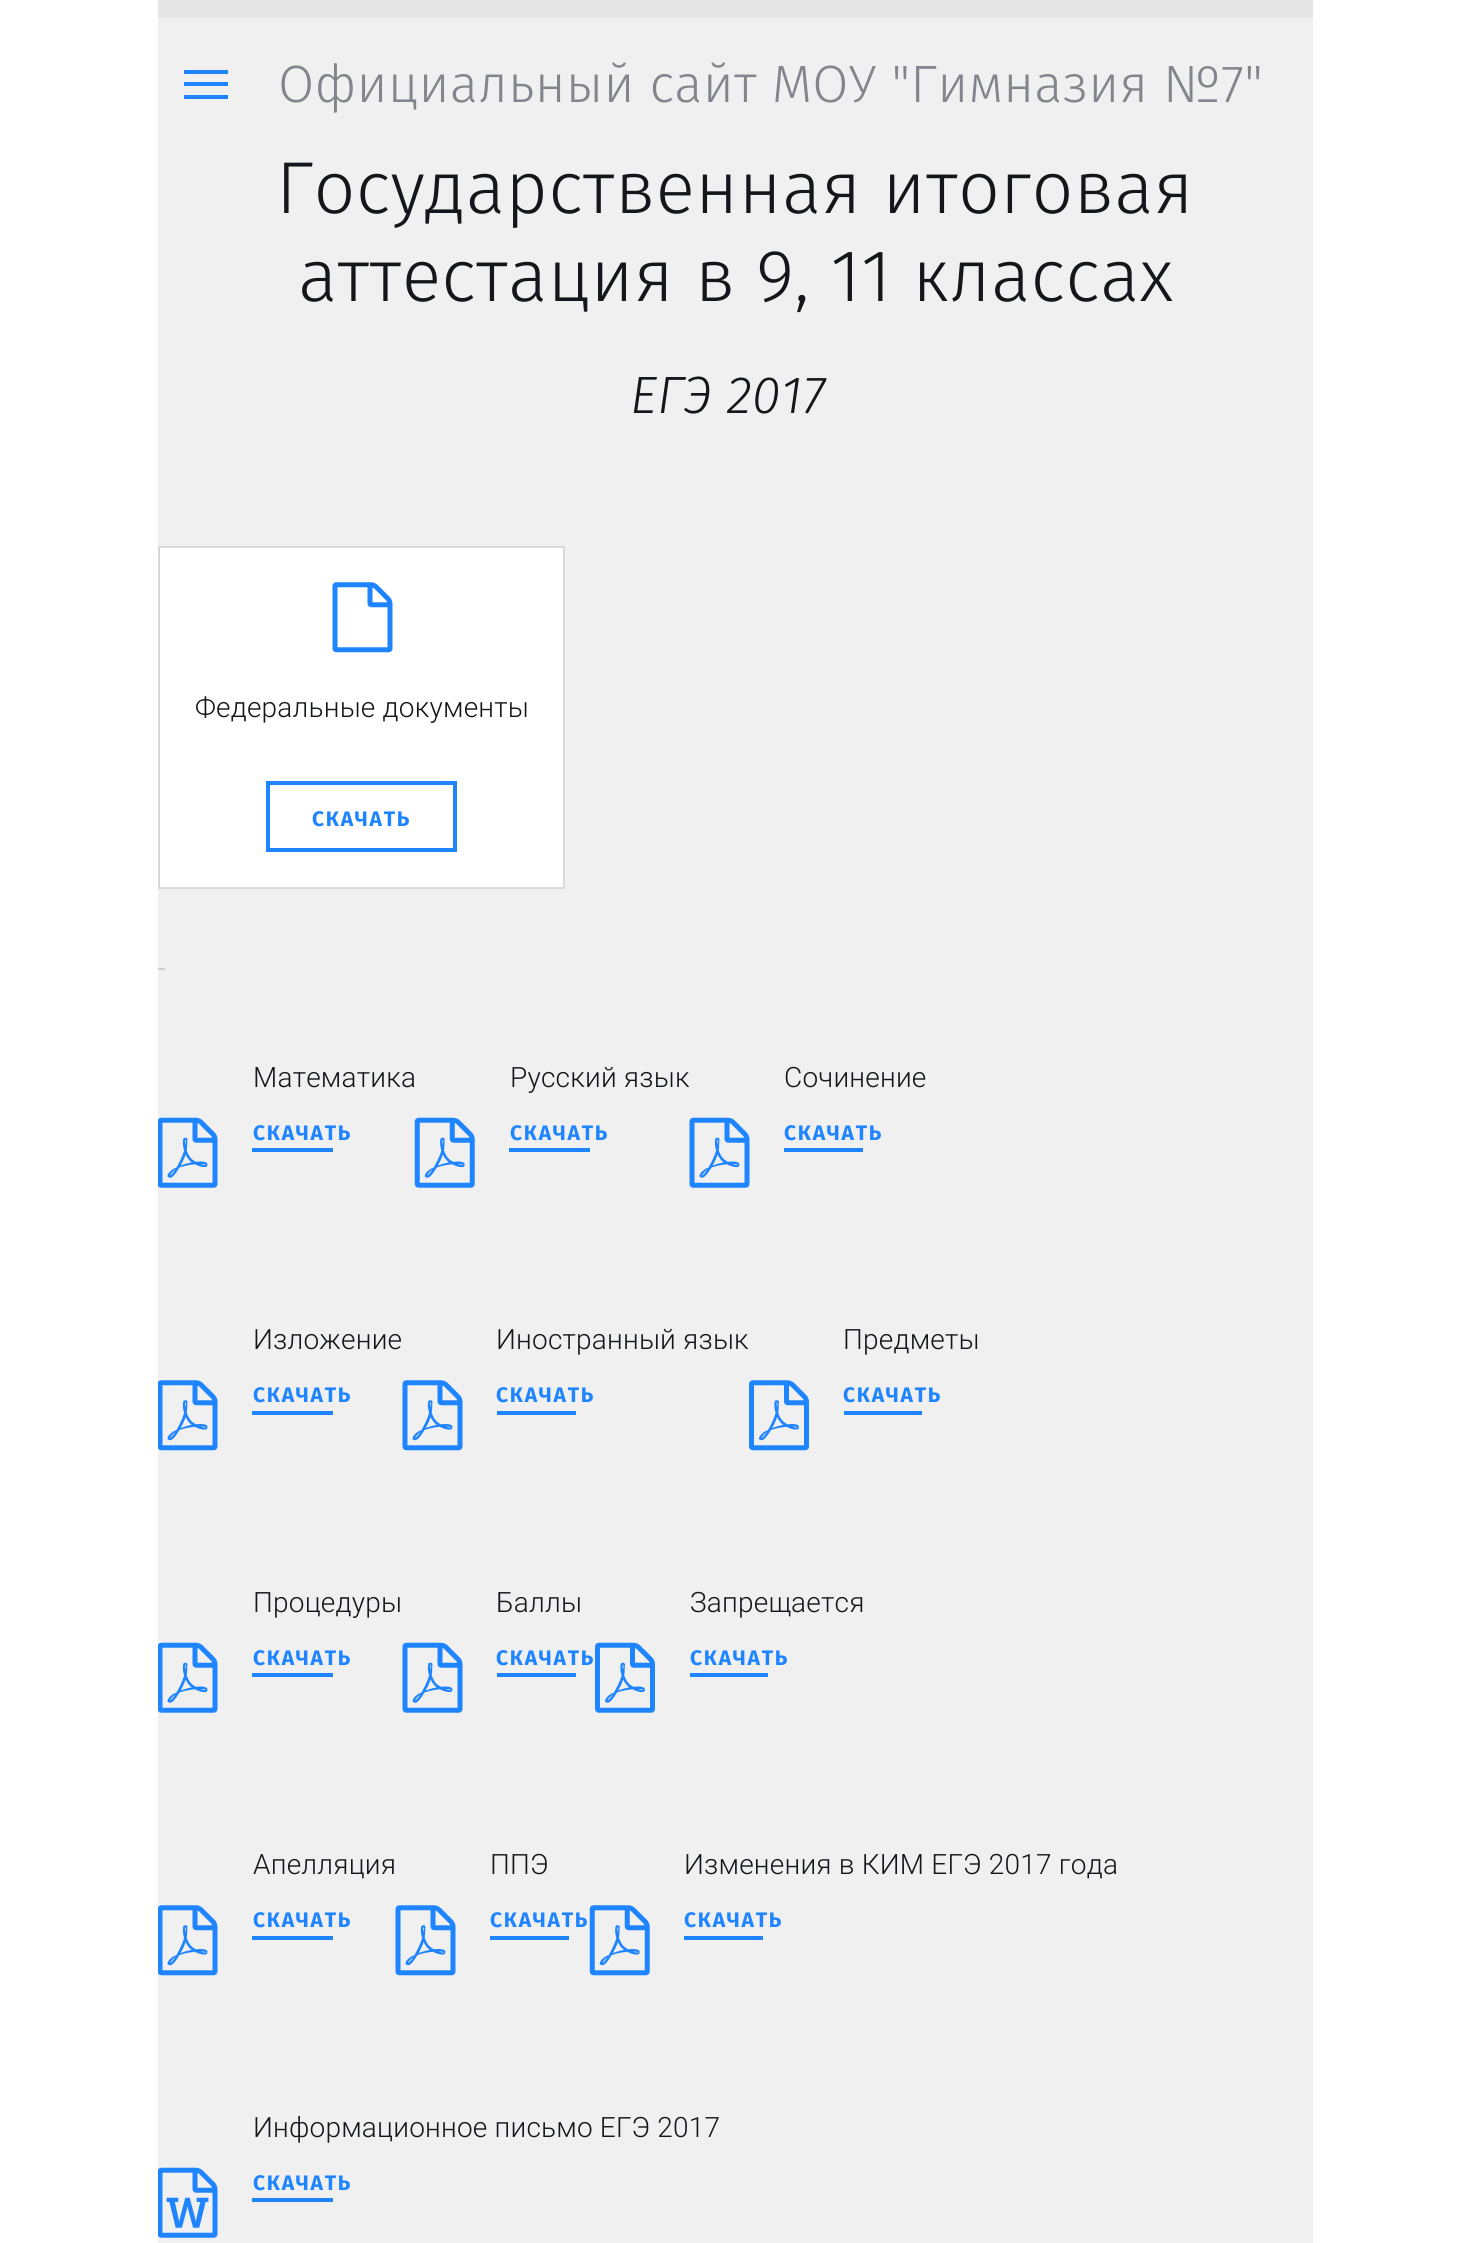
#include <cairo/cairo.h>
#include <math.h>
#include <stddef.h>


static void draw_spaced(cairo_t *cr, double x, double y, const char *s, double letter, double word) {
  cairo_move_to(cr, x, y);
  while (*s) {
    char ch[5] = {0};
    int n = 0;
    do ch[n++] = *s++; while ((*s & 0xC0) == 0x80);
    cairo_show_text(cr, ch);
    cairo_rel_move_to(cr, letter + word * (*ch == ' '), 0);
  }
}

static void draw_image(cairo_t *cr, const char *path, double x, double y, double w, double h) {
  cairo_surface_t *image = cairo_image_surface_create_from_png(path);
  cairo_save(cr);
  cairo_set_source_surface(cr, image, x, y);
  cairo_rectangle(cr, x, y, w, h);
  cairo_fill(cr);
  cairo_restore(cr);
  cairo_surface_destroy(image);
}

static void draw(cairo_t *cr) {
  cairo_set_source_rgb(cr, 1, 1, 1);
  cairo_paint(cr);
  cairo_set_source_rgb(cr, 240 / 255.0, 240 / 255.0, 240 / 255.0);
  cairo_rectangle(cr, 158, 18, 1155, 2225);
  cairo_fill(cr);
  cairo_set_source_rgb(cr, 229 / 255.0, 229 / 255.0, 229 / 255.0);
  cairo_rectangle(cr, 158, 0, 1155, 18);
  cairo_fill(cr);
  cairo_set_source_rgb(cr, 31 / 255.0, 132 / 255.0, 1);
  cairo_rectangle(cr, 184, 70, 44, 4);
  cairo_fill(cr);
  cairo_rectangle(cr, 184, 82, 44, 4);
  cairo_fill(cr);
  cairo_rectangle(cr, 184, 95, 44, 4);
  cairo_fill(cr);
  cairo_set_source_rgb(cr, 1, 1, 1);
  cairo_rectangle(cr, 159, 547, 405, 341);
  cairo_fill_preserve(cr);
  cairo_set_source_rgb(cr, 217 / 255.0, 217 / 255.0, 217 / 255.0);
  cairo_stroke(cr);
  draw_image(cr, "images/1.png", 332, 582, 61, 71);
  cairo_rectangle(cr, 268, 783, 187, 67);
  cairo_set_source_rgb(cr, 31 / 255.0, 132 / 255.0, 1);
  cairo_set_line_width(cr, 4);
  cairo_stroke(cr);
  cairo_set_source_rgb(cr, 207 / 255.0, 207 / 255.0, 208 / 255.0);
  cairo_rectangle(cr, 158, 968, 7, 2);
  cairo_fill(cr);
  draw_image(cr, "images/2.png", 158, 1117, 60, 71);
  cairo_set_source_rgb(cr, 31 / 255.0, 132 / 255.0, 1);
  cairo_rectangle(cr, 252, 1148, 81, 4);
  cairo_fill(cr);
  draw_image(cr, "images/3.png", 414, 1117, 61, 71);
  cairo_rectangle(cr, 509, 1148, 81, 4);
  cairo_fill(cr);
  draw_image(cr, "images/4.png", 689, 1117, 61, 71);
  cairo_rectangle(cr, 784, 1148, 79, 4);
  cairo_fill(cr);
  draw_image(cr, "images/5.png", 158, 1380, 60, 71);
  cairo_rectangle(cr, 252, 1411, 81, 4);
  cairo_fill(cr);
  draw_image(cr, "images/6.png", 402, 1380, 61, 71);
  cairo_rectangle(cr, 497, 1411, 79, 4);
  cairo_fill(cr);
  draw_image(cr, "images/7.png", 749, 1380, 60, 71);
  cairo_rectangle(cr, 844, 1411, 78, 4);
  cairo_fill(cr);
  draw_image(cr, "images/2.png", 158, 1642, 60, 71);
  cairo_rectangle(cr, 252, 1673, 81, 4);
  cairo_fill(cr);
  draw_image(cr, "images/4.png", 402, 1642, 61, 71);
  cairo_rectangle(cr, 497, 1673, 79, 4);
  cairo_fill(cr);
  draw_image(cr, "images/8.png", 595, 1642, 60, 71);
  cairo_rectangle(cr, 690, 1673, 78, 4);
  cairo_fill(cr);
  draw_image(cr, "images/5.png", 158, 1905, 60, 71);
  cairo_rectangle(cr, 252, 1936, 81, 4);
  cairo_fill(cr);
  draw_image(cr, "images/6.png", 395, 1905, 61, 71);
  cairo_rectangle(cr, 490, 1936, 79, 4);
  cairo_fill(cr);
  draw_image(cr, "images/9.png", 589, 1905, 61, 71);
  cairo_rectangle(cr, 684, 1936, 79, 4);
  cairo_fill(cr);
  draw_image(cr, "images/10.png", 158, 2167, 60, 71);
  cairo_rectangle(cr, 252, 2198, 81, 4);
  cairo_fill(cr);
  cairo_select_font_face(cr, "Fira Sans Light", CAIRO_FONT_SLANT_NORMAL, CAIRO_FONT_WEIGHT_NORMAL);
  cairo_set_font_size(cr, 52.5);
  cairo_set_source_rgb(cr, 131 / 255.0, 133 / 255.0, 138 / 255.0);
  draw_spaced(cr, 278, 102, "Официальный сайт МОУ \"Гимназия №7\"", 0.2, 0);
  cairo_set_font_size(cr, 73.5);
  cairo_set_source_rgb(cr, 20 / 255.0, 22 / 255.0, 26 / 255.0);
  draw_spaced(cr, 276, 213, "Государственная итоговая", 0.2, 0);
  draw_spaced(cr, 298, 301, "аттестация в 9, 11 классах", 0.2, 0);
  cairo_select_font_face(cr, "Fira Sans Light", CAIRO_FONT_SLANT_ITALIC, CAIRO_FONT_WEIGHT_NORMAL);
  cairo_set_font_size(cr, 52.5);
  draw_spaced(cr, 630, 413, "ЕГЭ 2017", 0.2, 0);
  cairo_select_font_face(cr, "Roboto Light", CAIRO_FONT_SLANT_NORMAL, CAIRO_FONT_WEIGHT_NORMAL);
  cairo_set_font_size(cr, 28);
  draw_spaced(cr, 195, 717, "Федеральные документы", 0.2, 0);
  cairo_select_font_face(cr, "Fira Sans", CAIRO_FONT_SLANT_NORMAL, CAIRO_FONT_WEIGHT_BOLD);
  cairo_set_font_size(cr, 21);
  cairo_set_source_rgb(cr, 31 / 255.0, 132 / 255.0, 1);
  draw_spaced(cr, 312, 826, "СКАЧАТЬ", 1.75, 0);
  cairo_select_font_face(cr, "Roboto Light", CAIRO_FONT_SLANT_NORMAL, CAIRO_FONT_WEIGHT_NORMAL);
  cairo_set_font_size(cr, 28);
  cairo_set_source_rgb(cr, 20 / 255.0, 22 / 255.0, 26 / 255.0);
  draw_spaced(cr, 253, 1087, "Математика", 0.2, 0);
  cairo_select_font_face(cr, "Fira Sans", CAIRO_FONT_SLANT_NORMAL, CAIRO_FONT_WEIGHT_BOLD);
  cairo_set_font_size(cr, 21);
  cairo_set_source_rgb(cr, 31 / 255.0, 132 / 255.0, 1);
  draw_spaced(cr, 253, 1140, "СКАЧАТЬ", 1.75, 0);
  cairo_select_font_face(cr, "Roboto Light", CAIRO_FONT_SLANT_NORMAL, CAIRO_FONT_WEIGHT_NORMAL);
  cairo_set_font_size(cr, 28);
  cairo_set_source_rgb(cr, 20 / 255.0, 22 / 255.0, 26 / 255.0);
  draw_spaced(cr, 510, 1087, "Русский язык", 0.2, 0);
  cairo_select_font_face(cr, "Fira Sans", CAIRO_FONT_SLANT_NORMAL, CAIRO_FONT_WEIGHT_BOLD);
  cairo_set_font_size(cr, 21);
  cairo_set_source_rgb(cr, 31 / 255.0, 132 / 255.0, 1);
  draw_spaced(cr, 510, 1140, "СКАЧАТЬ", 1.75, 0);
  cairo_select_font_face(cr, "Roboto Light", CAIRO_FONT_SLANT_NORMAL, CAIRO_FONT_WEIGHT_NORMAL);
  cairo_set_font_size(cr, 28);
  cairo_set_source_rgb(cr, 20 / 255.0, 22 / 255.0, 26 / 255.0);
  draw_spaced(cr, 784, 1087, "Сочинение", 0.2, 0);
  cairo_select_font_face(cr, "Fira Sans", CAIRO_FONT_SLANT_NORMAL, CAIRO_FONT_WEIGHT_BOLD);
  cairo_set_font_size(cr, 21);
  cairo_set_source_rgb(cr, 31 / 255.0, 132 / 255.0, 1);
  draw_spaced(cr, 784, 1140, "СКАЧАТЬ", 1.75, 0);
  cairo_select_font_face(cr, "Roboto Light", CAIRO_FONT_SLANT_NORMAL, CAIRO_FONT_WEIGHT_NORMAL);
  cairo_set_font_size(cr, 28);
  cairo_set_source_rgb(cr, 20 / 255.0, 22 / 255.0, 26 / 255.0);
  draw_spaced(cr, 253, 1349, "Изложение", 0.2, 0);
  cairo_select_font_face(cr, "Fira Sans", CAIRO_FONT_SLANT_NORMAL, CAIRO_FONT_WEIGHT_BOLD);
  cairo_set_font_size(cr, 21);
  cairo_set_source_rgb(cr, 31 / 255.0, 132 / 255.0, 1);
  draw_spaced(cr, 253, 1402, "СКАЧАТЬ", 1.75, 0);
  cairo_select_font_face(cr, "Roboto Light", CAIRO_FONT_SLANT_NORMAL, CAIRO_FONT_WEIGHT_NORMAL);
  cairo_set_font_size(cr, 28);
  cairo_set_source_rgb(cr, 20 / 255.0, 22 / 255.0, 26 / 255.0);
  draw_spaced(cr, 496, 1349, "Иностранный язык", 0.2, 0);
  cairo_select_font_face(cr, "Fira Sans", CAIRO_FONT_SLANT_NORMAL, CAIRO_FONT_WEIGHT_BOLD);
  cairo_set_font_size(cr, 21);
  cairo_set_source_rgb(cr, 31 / 255.0, 132 / 255.0, 1);
  draw_spaced(cr, 496, 1402, "СКАЧАТЬ", 1.75, 0);
  cairo_select_font_face(cr, "Roboto Light", CAIRO_FONT_SLANT_NORMAL, CAIRO_FONT_WEIGHT_NORMAL);
  cairo_set_font_size(cr, 28);
  cairo_set_source_rgb(cr, 20 / 255.0, 22 / 255.0, 26 / 255.0);
  draw_spaced(cr, 843, 1349, "Предметы", 0.2, 0);
  cairo_select_font_face(cr, "Fira Sans", CAIRO_FONT_SLANT_NORMAL, CAIRO_FONT_WEIGHT_BOLD);
  cairo_set_font_size(cr, 21);
  cairo_set_source_rgb(cr, 31 / 255.0, 132 / 255.0, 1);
  draw_spaced(cr, 843, 1402, "СКАЧАТЬ", 1.75, 0);
  cairo_select_font_face(cr, "Roboto Light", CAIRO_FONT_SLANT_NORMAL, CAIRO_FONT_WEIGHT_NORMAL);
  cairo_set_font_size(cr, 28);
  cairo_set_source_rgb(cr, 20 / 255.0, 22 / 255.0, 26 / 255.0);
  draw_spaced(cr, 253, 1612, "Процедуры", 0.2, 0);
  cairo_select_font_face(cr, "Fira Sans", CAIRO_FONT_SLANT_NORMAL, CAIRO_FONT_WEIGHT_BOLD);
  cairo_set_font_size(cr, 21);
  cairo_set_source_rgb(cr, 31 / 255.0, 132 / 255.0, 1);
  draw_spaced(cr, 253, 1665, "СКАЧАТЬ", 1.75, 0);
  cairo_select_font_face(cr, "Roboto Light", CAIRO_FONT_SLANT_NORMAL, CAIRO_FONT_WEIGHT_NORMAL);
  cairo_set_font_size(cr, 28);
  cairo_set_source_rgb(cr, 20 / 255.0, 22 / 255.0, 26 / 255.0);
  draw_spaced(cr, 496, 1612, "Баллы", 0.2, 0);
  cairo_select_font_face(cr, "Fira Sans", CAIRO_FONT_SLANT_NORMAL, CAIRO_FONT_WEIGHT_BOLD);
  cairo_set_font_size(cr, 21);
  cairo_set_source_rgb(cr, 31 / 255.0, 132 / 255.0, 1);
  draw_spaced(cr, 496, 1665, "СКАЧАТЬ", 1.75, 0);
  cairo_select_font_face(cr, "Roboto Light", CAIRO_FONT_SLANT_NORMAL, CAIRO_FONT_WEIGHT_NORMAL);
  cairo_set_font_size(cr, 28);
  cairo_set_source_rgb(cr, 20 / 255.0, 22 / 255.0, 26 / 255.0);
  draw_spaced(cr, 690, 1612, "Запрещается", 0.2, 0);
  cairo_select_font_face(cr, "Fira Sans", CAIRO_FONT_SLANT_NORMAL, CAIRO_FONT_WEIGHT_BOLD);
  cairo_set_font_size(cr, 21);
  cairo_set_source_rgb(cr, 31 / 255.0, 132 / 255.0, 1);
  draw_spaced(cr, 690, 1665, "СКАЧАТЬ", 1.75, 0);
  cairo_select_font_face(cr, "Roboto Light", CAIRO_FONT_SLANT_NORMAL, CAIRO_FONT_WEIGHT_NORMAL);
  cairo_set_font_size(cr, 28);
  cairo_set_source_rgb(cr, 20 / 255.0, 22 / 255.0, 26 / 255.0);
  draw_spaced(cr, 253, 1874, "Апелляция", 0.2, 0);
  cairo_select_font_face(cr, "Fira Sans", CAIRO_FONT_SLANT_NORMAL, CAIRO_FONT_WEIGHT_BOLD);
  cairo_set_font_size(cr, 21);
  cairo_set_source_rgb(cr, 31 / 255.0, 132 / 255.0, 1);
  draw_spaced(cr, 253, 1927, "СКАЧАТЬ", 1.75, 0);
  cairo_select_font_face(cr, "Roboto Light", CAIRO_FONT_SLANT_NORMAL, CAIRO_FONT_WEIGHT_NORMAL);
  cairo_set_font_size(cr, 28);
  cairo_set_source_rgb(cr, 20 / 255.0, 22 / 255.0, 26 / 255.0);
  draw_spaced(cr, 490, 1874, "ППЭ", 0.2, 0);
  cairo_select_font_face(cr, "Fira Sans", CAIRO_FONT_SLANT_NORMAL, CAIRO_FONT_WEIGHT_BOLD);
  cairo_set_font_size(cr, 21);
  cairo_set_source_rgb(cr, 31 / 255.0, 132 / 255.0, 1);
  draw_spaced(cr, 490, 1927, "СКАЧАТЬ", 1.75, 0);
  cairo_select_font_face(cr, "Roboto Light", CAIRO_FONT_SLANT_NORMAL, CAIRO_FONT_WEIGHT_NORMAL);
  cairo_set_font_size(cr, 28);
  cairo_set_source_rgb(cr, 20 / 255.0, 22 / 255.0, 26 / 255.0);
  draw_spaced(cr, 684, 1874, "Изменения в КИМ ЕГЭ 2017 года", 0.2, 0);
  cairo_select_font_face(cr, "Fira Sans", CAIRO_FONT_SLANT_NORMAL, CAIRO_FONT_WEIGHT_BOLD);
  cairo_set_font_size(cr, 21);
  cairo_set_source_rgb(cr, 31 / 255.0, 132 / 255.0, 1);
  draw_spaced(cr, 684, 1927, "СКАЧАТЬ", 1.75, 0);
  cairo_select_font_face(cr, "Roboto Light", CAIRO_FONT_SLANT_NORMAL, CAIRO_FONT_WEIGHT_NORMAL);
  cairo_set_font_size(cr, 28);
  cairo_set_source_rgb(cr, 20 / 255.0, 22 / 255.0, 26 / 255.0);
  draw_spaced(cr, 253, 2137, "Информационное письмо ЕГЭ 2017", 0.2, 0);
  cairo_select_font_face(cr, "Fira Sans", CAIRO_FONT_SLANT_NORMAL, CAIRO_FONT_WEIGHT_BOLD);
  cairo_set_font_size(cr, 21);
  cairo_set_source_rgb(cr, 31 / 255.0, 132 / 255.0, 1);
  draw_spaced(cr, 253, 2190, "СКАЧАТЬ", 1.75, 0);
}

int main(void) {
  cairo_surface_t *surface = cairo_image_surface_create(CAIRO_FORMAT_RGB24, 1469, 2243);
  cairo_t *cr = cairo_create(surface);
  cairo_font_options_t *options = cairo_font_options_create();
  cairo_font_options_set_hint_metrics(options, CAIRO_HINT_METRICS_OFF);
  cairo_font_options_set_hint_style(options, CAIRO_HINT_STYLE_NONE);
  cairo_set_font_options(cr, options);
  cairo_set_miter_limit(cr, 4);
  draw(cr);
  cairo_surface_write_to_png(surface, "out.png");
  cairo_font_options_destroy(options);
  cairo_destroy(cr);
  cairo_surface_destroy(surface);
  return 0;
}
